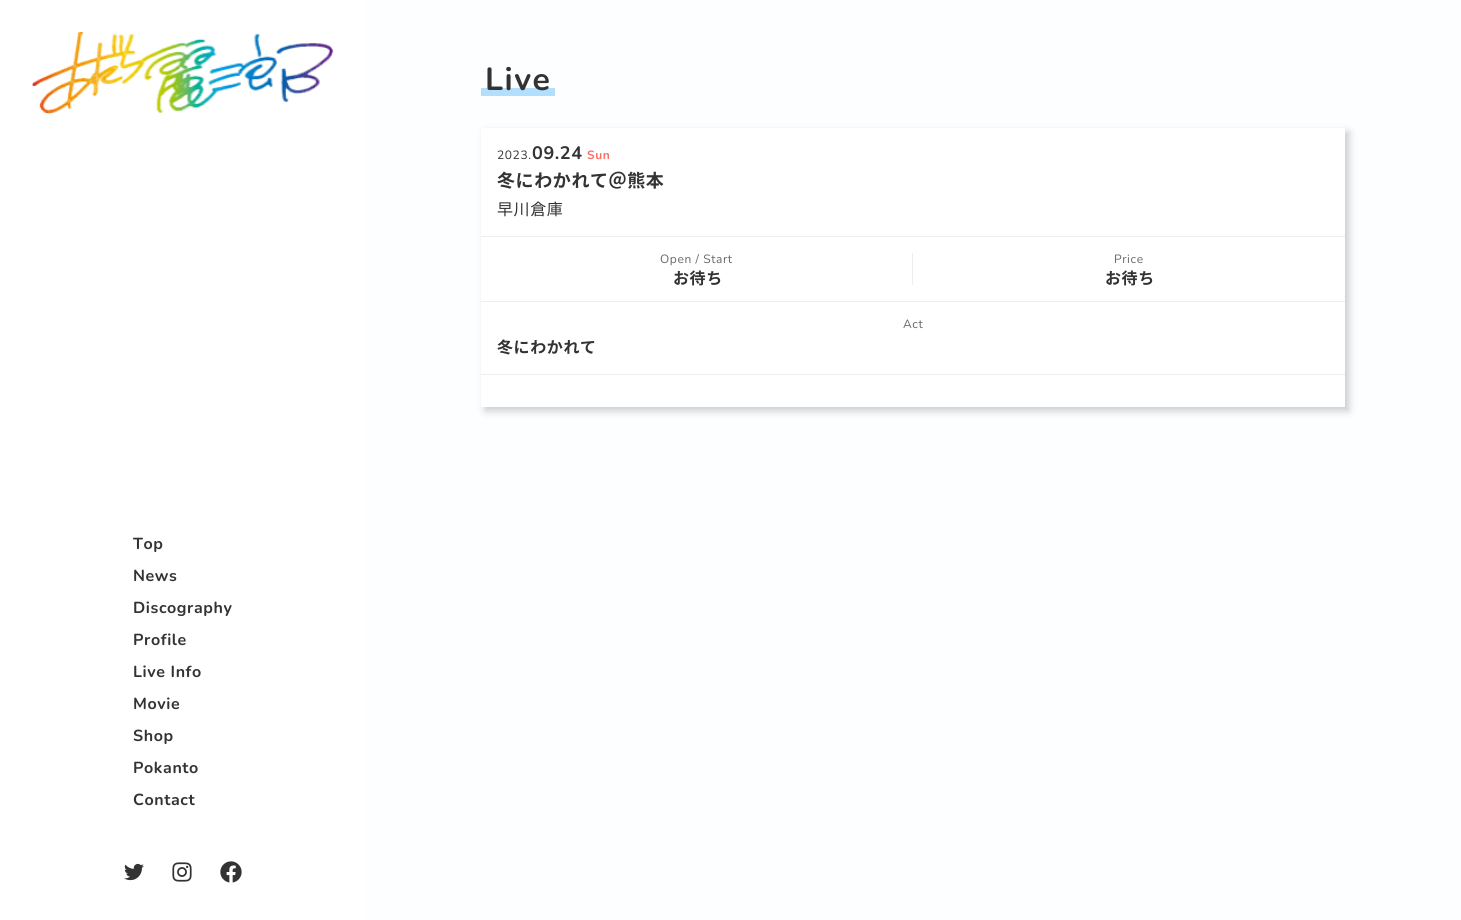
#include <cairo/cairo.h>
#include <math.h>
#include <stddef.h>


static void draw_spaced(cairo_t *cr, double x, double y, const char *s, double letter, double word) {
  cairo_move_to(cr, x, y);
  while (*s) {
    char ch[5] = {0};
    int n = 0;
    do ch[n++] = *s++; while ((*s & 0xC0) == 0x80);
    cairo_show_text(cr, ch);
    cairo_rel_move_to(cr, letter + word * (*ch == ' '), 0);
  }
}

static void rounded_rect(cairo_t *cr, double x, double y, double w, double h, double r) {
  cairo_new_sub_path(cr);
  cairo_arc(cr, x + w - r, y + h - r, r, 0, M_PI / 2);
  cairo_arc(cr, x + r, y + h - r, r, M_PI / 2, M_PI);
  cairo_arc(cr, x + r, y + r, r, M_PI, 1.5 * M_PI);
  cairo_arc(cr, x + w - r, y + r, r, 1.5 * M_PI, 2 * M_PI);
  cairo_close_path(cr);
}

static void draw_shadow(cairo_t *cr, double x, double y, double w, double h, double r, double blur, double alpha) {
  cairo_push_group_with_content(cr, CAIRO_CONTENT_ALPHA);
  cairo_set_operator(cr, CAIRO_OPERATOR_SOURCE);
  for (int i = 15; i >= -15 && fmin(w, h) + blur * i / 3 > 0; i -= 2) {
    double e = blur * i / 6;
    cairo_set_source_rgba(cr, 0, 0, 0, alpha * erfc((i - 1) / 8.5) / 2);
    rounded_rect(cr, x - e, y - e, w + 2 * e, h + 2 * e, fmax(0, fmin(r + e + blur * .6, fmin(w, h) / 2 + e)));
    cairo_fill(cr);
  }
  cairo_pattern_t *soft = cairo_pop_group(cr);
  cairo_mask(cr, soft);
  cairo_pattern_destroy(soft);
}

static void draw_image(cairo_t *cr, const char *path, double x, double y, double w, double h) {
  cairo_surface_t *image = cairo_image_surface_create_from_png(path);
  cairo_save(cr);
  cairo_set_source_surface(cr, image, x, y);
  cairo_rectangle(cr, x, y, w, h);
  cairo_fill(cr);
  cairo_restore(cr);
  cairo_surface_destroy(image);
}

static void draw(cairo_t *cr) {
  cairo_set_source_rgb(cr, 252 / 255.0, 254 / 255.0, 1);
  cairo_paint(cr);
  cairo_set_source_rgb(cr, 1, 1, 1);
  cairo_rectangle(cr, 0, 0, 365, 920);
  cairo_fill(cr);
  draw_image(cr, "images/1.png", 32, 32, 302, 82);
  cairo_set_source_rgb(cr, 177 / 255.0, 223 / 255.0, 253 / 255.0);
  cairo_rectangle(cr, 481, 88, 74, 8);
  cairo_fill(cr);
  cairo_set_source_rgb(cr, 51 / 255.0, 51 / 255.0, 51 / 255.0);
  draw_shadow(cr, 485, 132, 864, 279, 0, 4, 0.25);
  cairo_set_source_rgb(cr, 1, 1, 1);
  cairo_rectangle(cr, 481, 128, 864, 279);
  cairo_fill(cr);
  cairo_set_source_rgb(cr, 238 / 255.0, 238 / 255.0, 238 / 255.0);
  cairo_rectangle(cr, 481, 236, 864, 1);
  cairo_fill(cr);
  cairo_rectangle(cr, 481, 301, 864, 1);
  cairo_fill(cr);
  cairo_rectangle(cr, 912, 253, 1, 32);
  cairo_fill(cr);
  cairo_rectangle(cr, 481, 374, 864, 1);
  cairo_fill(cr);
  draw_image(cr, "images/2.png", 124, 863, 20, 18);
  draw_image(cr, "images/3.png", 172, 862, 20, 20);
  draw_image(cr, "images/4.png", 220, 861, 22, 22);
  cairo_select_font_face(cr, "Nunito", CAIRO_FONT_SLANT_NORMAL, CAIRO_FONT_WEIGHT_BOLD);
  cairo_set_font_size(cr, 32);
  cairo_set_source_rgb(cr, 51 / 255.0, 51 / 255.0, 51 / 255.0);
  draw_spaced(cr, 485, 90, "Live", 1.5, 0);
  cairo_select_font_face(cr, "Nunito", CAIRO_FONT_SLANT_NORMAL, CAIRO_FONT_WEIGHT_NORMAL);
  cairo_set_font_size(cr, 12);
  draw_spaced(cr, 497, 159, "2023.", 0.6, 0);
  cairo_select_font_face(cr, "Nunito", CAIRO_FONT_SLANT_NORMAL, CAIRO_FONT_WEIGHT_BOLD);
  cairo_set_font_size(cr, 18);
  draw_spaced(cr, 532, 159, "09.24", 0.6, 0);
  cairo_set_font_size(cr, 12);
  cairo_set_source_rgb(cr, 250 / 255.0, 110 / 255.0, 101 / 255.0);
  draw_spaced(cr, 587, 159, "Sun", 0.6, 0);
  cairo_select_font_face(cr, "Noto Sans JP", CAIRO_FONT_SLANT_NORMAL, CAIRO_FONT_WEIGHT_BOLD);
  cairo_set_font_size(cr, 18);
  cairo_set_source_rgb(cr, 51 / 255.0, 51 / 255.0, 51 / 255.0);
  draw_spaced(cr, 497, 187, "冬にわかれて＠熊本", 0.6, 0);
  cairo_select_font_face(cr, "Noto Sans JP", CAIRO_FONT_SLANT_NORMAL, CAIRO_FONT_WEIGHT_NORMAL);
  cairo_set_font_size(cr, 16);
  draw_spaced(cr, 497, 215, "早川倉庫", 0.6, 0);
  cairo_select_font_face(cr, "Nunito", CAIRO_FONT_SLANT_NORMAL, CAIRO_FONT_WEIGHT_NORMAL);
  cairo_set_font_size(cr, 12);
  cairo_set_source_rgb(cr, 102 / 255.0, 102 / 255.0, 102 / 255.0);
  draw_spaced(cr, 660, 263, "Open / Start", 0.6, 0);
  cairo_select_font_face(cr, "Noto Sans JP", CAIRO_FONT_SLANT_NORMAL, CAIRO_FONT_WEIGHT_BOLD);
  cairo_set_font_size(cr, 16);
  cairo_set_source_rgb(cr, 51 / 255.0, 51 / 255.0, 51 / 255.0);
  draw_spaced(cr, 673, 284, "お待ち", 0.6, 0);
  cairo_select_font_face(cr, "Nunito", CAIRO_FONT_SLANT_NORMAL, CAIRO_FONT_WEIGHT_NORMAL);
  cairo_set_font_size(cr, 12);
  cairo_set_source_rgb(cr, 102 / 255.0, 102 / 255.0, 102 / 255.0);
  draw_spaced(cr, 1114, 263, "Price", 0.6, 0);
  cairo_select_font_face(cr, "Noto Sans JP", CAIRO_FONT_SLANT_NORMAL, CAIRO_FONT_WEIGHT_BOLD);
  cairo_set_font_size(cr, 16);
  cairo_set_source_rgb(cr, 51 / 255.0, 51 / 255.0, 51 / 255.0);
  draw_spaced(cr, 1105, 284, "お待ち", 0.6, 0);
  cairo_select_font_face(cr, "Nunito", CAIRO_FONT_SLANT_NORMAL, CAIRO_FONT_WEIGHT_NORMAL);
  cairo_set_font_size(cr, 12);
  cairo_set_source_rgb(cr, 102 / 255.0, 102 / 255.0, 102 / 255.0);
  draw_spaced(cr, 903, 328, "Act", 0.6, 0);
  cairo_select_font_face(cr, "Noto Sans JP", CAIRO_FONT_SLANT_NORMAL, CAIRO_FONT_WEIGHT_BOLD);
  cairo_set_font_size(cr, 16);
  cairo_set_source_rgb(cr, 51 / 255.0, 51 / 255.0, 51 / 255.0);
  draw_spaced(cr, 497, 353, "冬にわかれて", 0.6, 0);
  cairo_select_font_face(cr, "Nunito", CAIRO_FONT_SLANT_NORMAL, CAIRO_FONT_WEIGHT_BOLD);
  draw_spaced(cr, 133, 549, "Top", 0.6, 0);
  draw_spaced(cr, 133, 581, "News", 0.6, 0);
  draw_spaced(cr, 133, 613, "Discography", 0.6, 0);
  draw_spaced(cr, 133, 645, "Profile", 0.6, 0);
  draw_spaced(cr, 133, 677, "Live Info", 0.6, 0);
  draw_spaced(cr, 133, 709, "Movie", 0.6, 0);
  draw_spaced(cr, 133, 741, "Shop", 0.6, 0);
  draw_spaced(cr, 133, 773, "Pokanto", 0.6, 0);
  draw_spaced(cr, 133, 805, "Contact", 0.6, 0);
}

int main(void) {
  cairo_surface_t *surface = cairo_image_surface_create(CAIRO_FORMAT_RGB24, 1461, 920);
  cairo_t *cr = cairo_create(surface);
  cairo_font_options_t *options = cairo_font_options_create();
  cairo_font_options_set_hint_metrics(options, CAIRO_HINT_METRICS_OFF);
  cairo_font_options_set_hint_style(options, CAIRO_HINT_STYLE_NONE);
  cairo_set_font_options(cr, options);
  cairo_set_miter_limit(cr, 4);
  draw(cr);
  cairo_surface_write_to_png(surface, "out.png");
  cairo_font_options_destroy(options);
  cairo_destroy(cr);
  cairo_surface_destroy(surface);
  return 0;
}
